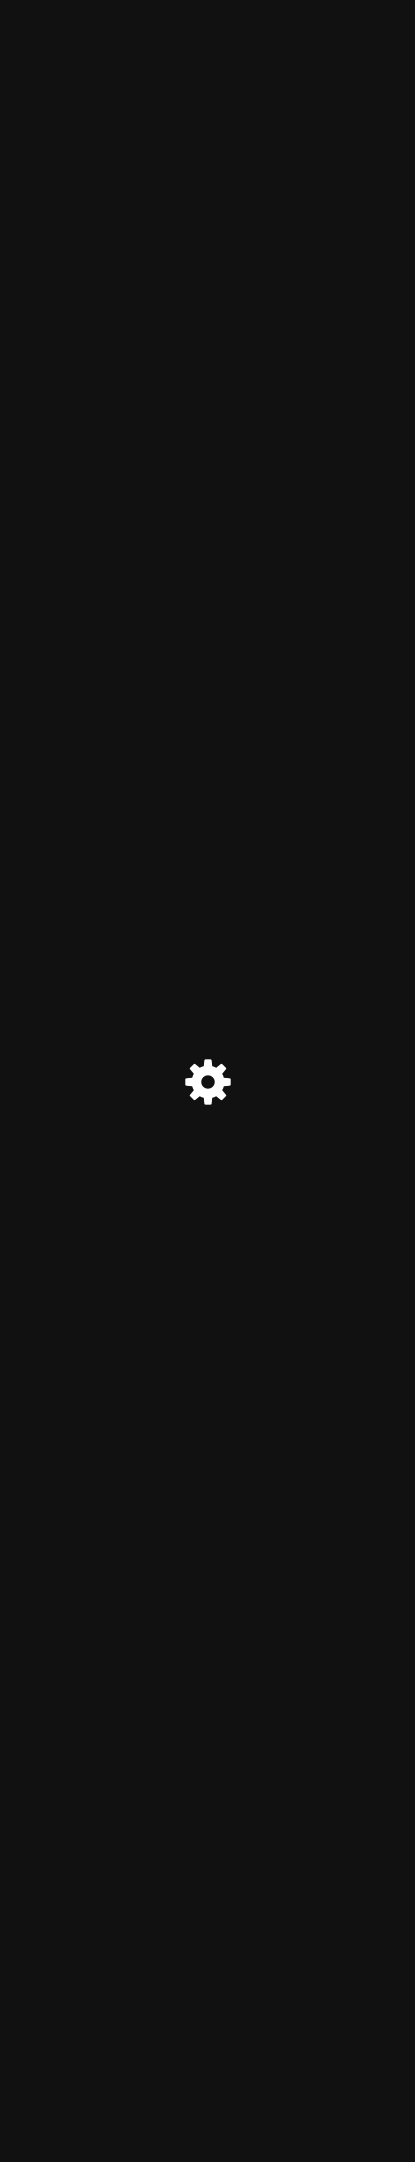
#include <cairo/cairo.h>
#include <math.h>
#include <stddef.h>


static void draw_image(cairo_t *cr, const char *path, double x, double y, double w, double h) {
  cairo_surface_t *image = cairo_image_surface_create_from_png(path);
  cairo_save(cr);
  cairo_set_source_surface(cr, image, x, y);
  cairo_rectangle(cr, x, y, w, h);
  cairo_fill(cr);
  cairo_restore(cr);
  cairo_surface_destroy(image);
}

static void draw(cairo_t *cr) {
  cairo_set_source_rgb(cr, 17 / 255.0, 17 / 255.0, 17 / 255.0);
  cairo_paint(cr);
  draw_image(cr, "images/1.png", 185, 1059, 46, 46);
}

int main(void) {
  cairo_surface_t *surface = cairo_image_surface_create(CAIRO_FORMAT_RGB24, 415, 2162);
  cairo_t *cr = cairo_create(surface);
  cairo_font_options_t *options = cairo_font_options_create();
  cairo_font_options_set_hint_metrics(options, CAIRO_HINT_METRICS_OFF);
  cairo_font_options_set_hint_style(options, CAIRO_HINT_STYLE_NONE);
  cairo_set_font_options(cr, options);
  cairo_set_miter_limit(cr, 4);
  draw(cr);
  cairo_surface_write_to_png(surface, "out.png");
  cairo_font_options_destroy(options);
  cairo_destroy(cr);
  cairo_surface_destroy(surface);
  return 0;
}
